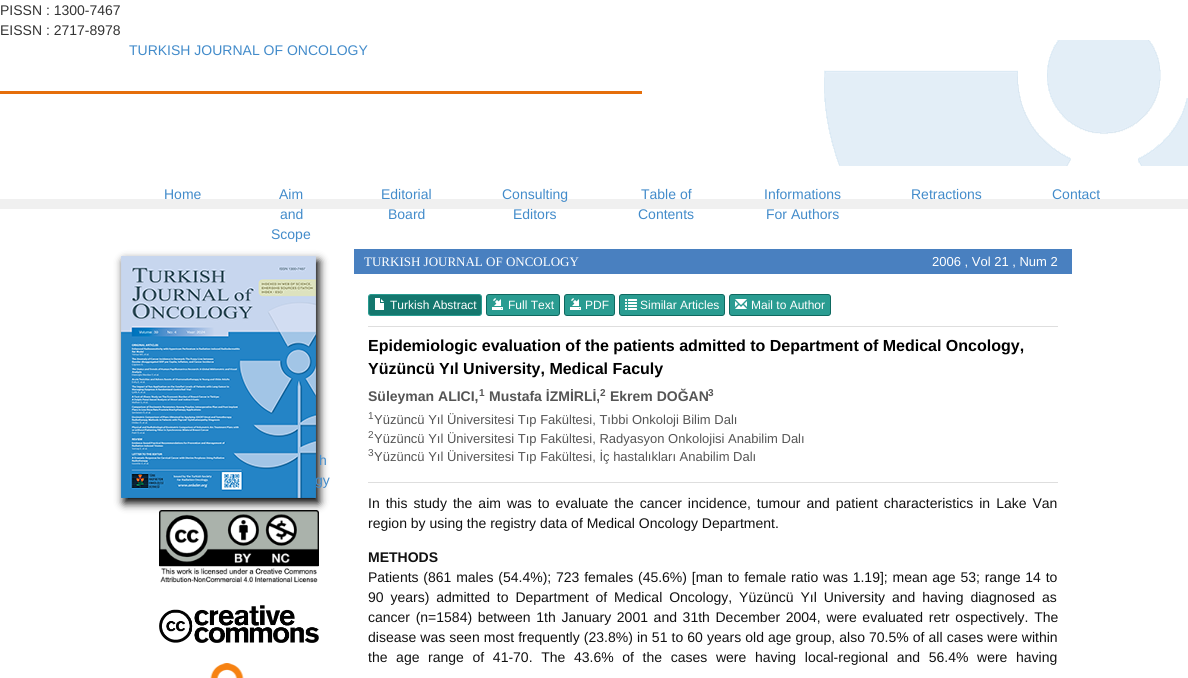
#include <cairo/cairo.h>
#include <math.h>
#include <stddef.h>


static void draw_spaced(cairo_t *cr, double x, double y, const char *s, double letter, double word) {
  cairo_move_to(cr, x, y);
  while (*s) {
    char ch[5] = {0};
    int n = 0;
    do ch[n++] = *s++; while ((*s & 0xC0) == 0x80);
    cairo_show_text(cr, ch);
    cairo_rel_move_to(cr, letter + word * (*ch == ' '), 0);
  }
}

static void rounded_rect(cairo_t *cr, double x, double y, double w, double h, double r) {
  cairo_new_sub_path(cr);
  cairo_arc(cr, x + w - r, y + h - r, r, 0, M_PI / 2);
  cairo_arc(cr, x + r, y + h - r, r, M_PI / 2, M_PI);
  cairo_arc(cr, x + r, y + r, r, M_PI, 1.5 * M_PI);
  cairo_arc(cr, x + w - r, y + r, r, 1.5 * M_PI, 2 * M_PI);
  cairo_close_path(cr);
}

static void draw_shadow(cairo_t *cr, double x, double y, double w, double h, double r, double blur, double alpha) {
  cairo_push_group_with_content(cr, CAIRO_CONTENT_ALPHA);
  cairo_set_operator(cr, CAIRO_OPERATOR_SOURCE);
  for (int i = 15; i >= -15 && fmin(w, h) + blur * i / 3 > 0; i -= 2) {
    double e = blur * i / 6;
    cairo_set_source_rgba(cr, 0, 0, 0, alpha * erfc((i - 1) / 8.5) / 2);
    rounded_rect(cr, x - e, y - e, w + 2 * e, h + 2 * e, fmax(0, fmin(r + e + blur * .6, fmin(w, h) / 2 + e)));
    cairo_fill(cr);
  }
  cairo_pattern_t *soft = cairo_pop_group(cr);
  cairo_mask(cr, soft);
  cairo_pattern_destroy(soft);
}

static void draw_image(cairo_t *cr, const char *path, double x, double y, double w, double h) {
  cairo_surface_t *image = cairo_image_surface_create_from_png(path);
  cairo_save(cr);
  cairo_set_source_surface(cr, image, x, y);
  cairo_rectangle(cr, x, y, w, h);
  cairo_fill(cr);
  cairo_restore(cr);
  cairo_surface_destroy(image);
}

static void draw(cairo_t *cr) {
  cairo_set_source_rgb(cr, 1, 1, 1);
  cairo_paint(cr);
  draw_image(cr, "images/1.png", 824, 40, 364, 126);
  cairo_set_source_rgb(cr, 229 / 255.0, 110 / 255.0, 10 / 255.0);
  cairo_rectangle(cr, 0, 91, 642, 3);
  cairo_fill(cr);
  cairo_set_source_rgb(cr, 240 / 255.0, 240 / 255.0, 240 / 255.0);
  cairo_rectangle(cr, 0, 199, 1188, 10);
  cairo_fill(cr);
  draw_image(cr, "images/3.png", 159, 510, 160, 73);
  cairo_set_source_rgb(cr, 0, 0, 0);
  draw_shadow(cr, 124, 261, 195, 242, 0, 4.5, 1);
  draw_image(cr, "images/4.png", 159, 605, 160, 38);
  draw_image(cr, "images/5.png", 210, 663, 34, 15);
  cairo_set_source_rgb(cr, 73 / 255.0, 128 / 255.0, 192 / 255.0);
  cairo_rectangle(cr, 354, 249, 718, 25);
  cairo_fill(cr);
  cairo_set_source_rgb(cr, 20 / 255.0, 119 / 255.0, 110 / 255.0);
  rounded_rect(cr, 368.5, 294.5, 113, 21, 2.5);
  cairo_fill_preserve(cr);
  cairo_set_source_rgb(cr, 42 / 255.0, 156 / 255.0, 145 / 255.0);
  cairo_set_line_width(cr, 1);
  cairo_stroke(cr);
  draw_image(cr, "images/6.png", 375, 298, 9, 12);
  rounded_rect(cr, 486.5, 294.5, 73, 21, 2.5);
  cairo_fill_preserve(cr);
  cairo_set_source_rgb(cr, 14 / 255.0, 105 / 255.0, 96 / 255.0);
  cairo_stroke(cr);
  draw_image(cr, "images/7.png", 492, 298, 11, 12);
  cairo_set_source_rgb(cr, 42 / 255.0, 156 / 255.0, 145 / 255.0);
  rounded_rect(cr, 564.5, 294.5, 50, 21, 2.5);
  cairo_fill_preserve(cr);
  cairo_set_source_rgb(cr, 14 / 255.0, 105 / 255.0, 96 / 255.0);
  cairo_stroke(cr);
  draw_image(cr, "images/7.png", 570, 298, 11, 12);
  cairo_set_source_rgb(cr, 42 / 255.0, 156 / 255.0, 145 / 255.0);
  rounded_rect(cr, 619.5, 294.5, 105, 21, 2.5);
  cairo_fill_preserve(cr);
  cairo_set_source_rgb(cr, 14 / 255.0, 105 / 255.0, 96 / 255.0);
  cairo_stroke(cr);
  draw_image(cr, "images/8.png", 625, 299, 12, 11);
  cairo_set_source_rgb(cr, 42 / 255.0, 156 / 255.0, 145 / 255.0);
  rounded_rect(cr, 729.5, 294.5, 101, 21, 2.5);
  cairo_fill_preserve(cr);
  cairo_set_source_rgb(cr, 14 / 255.0, 105 / 255.0, 96 / 255.0);
  cairo_stroke(cr);
  draw_image(cr, "images/9.png", 735, 299, 12, 10);
  cairo_set_source_rgb(cr, 222 / 255.0, 222 / 255.0, 222 / 255.0);
  cairo_rectangle(cr, 368, 326, 690, 1);
  cairo_fill(cr);
  cairo_rectangle(cr, 368, 482, 690, 1);
  cairo_fill(cr);
  cairo_select_font_face(cr, "Liberation Sans", CAIRO_FONT_SLANT_NORMAL, CAIRO_FONT_WEIGHT_NORMAL);
  cairo_set_font_size(cr, 14);
  cairo_set_source_rgb(cr, 51 / 255.0, 51 / 255.0, 51 / 255.0);
  cairo_move_to(cr, 0, 15);
  cairo_show_text(cr, "PISSN : 1300-7467");
  cairo_move_to(cr, 0, 35);
  cairo_show_text(cr, "EISSN : 2717-8978");
  cairo_set_source_rgb(cr, 66 / 255.0, 139 / 255.0, 202 / 255.0);
  cairo_move_to(cr, 129, 55);
  cairo_show_text(cr, "TURKISH JOURNAL OF ONCOLOGY");
  cairo_move_to(cr, 164, 199);
  cairo_show_text(cr, "Home");
  cairo_move_to(cr, 279, 199);
  cairo_show_text(cr, "Aim");
  cairo_move_to(cr, 280, 219);
  cairo_show_text(cr, "and");
  cairo_move_to(cr, 271, 239);
  cairo_show_text(cr, "Scope");
  cairo_move_to(cr, 381, 199);
  cairo_show_text(cr, "Editorial");
  cairo_move_to(cr, 388, 219);
  cairo_show_text(cr, "Board");
  cairo_move_to(cr, 502, 199);
  cairo_show_text(cr, "Consulting");
  cairo_move_to(cr, 513, 219);
  cairo_show_text(cr, "Editors");
  cairo_move_to(cr, 641, 199);
  cairo_show_text(cr, "Table of");
  cairo_move_to(cr, 638, 219);
  cairo_show_text(cr, "Contents");
  cairo_move_to(cr, 764, 199);
  cairo_show_text(cr, "Informations");
  cairo_move_to(cr, 766, 219);
  cairo_show_text(cr, "For Authors");
  cairo_move_to(cr, 911, 199);
  cairo_show_text(cr, "Retractions");
  cairo_move_to(cr, 1052, 199);
  cairo_show_text(cr, "Contact");
  cairo_move_to(cr, 319, 465);
  cairo_show_text(cr, "h");
  cairo_move_to(cr, 315, 485);
  cairo_show_text(cr, "gy");
  draw_image(cr, "images/2.png", 121, 256, 195, 242);
  cairo_select_font_face(cr, "Liberation Serif", CAIRO_FONT_SLANT_NORMAL, CAIRO_FONT_WEIGHT_NORMAL);
  cairo_set_font_size(cr, 13);
  cairo_set_source_rgb(cr, 1, 1, 1);
  cairo_move_to(cr, 364, 266);
  cairo_show_text(cr, "TURKISH JOURNAL OF ONCOLOGY");
  cairo_select_font_face(cr, "Liberation Sans", CAIRO_FONT_SLANT_NORMAL, CAIRO_FONT_WEIGHT_NORMAL);
  cairo_move_to(cr, 932, 266);
  cairo_show_text(cr, "2006 , Vol 21 , Num 2");
  cairo_set_font_size(cr, 12);
  cairo_move_to(cr, 390, 309);
  cairo_show_text(cr, "Turkish Abstract");
  cairo_move_to(cr, 508, 309);
  cairo_show_text(cr, "Full Text");
  cairo_move_to(cr, 585, 309);
  cairo_show_text(cr, "PDF");
  cairo_move_to(cr, 640, 309);
  cairo_show_text(cr, "Similar Articles");
  cairo_move_to(cr, 751, 309);
  cairo_show_text(cr, "Mail to Author");
  cairo_select_font_face(cr, "Liberation Sans", CAIRO_FONT_SLANT_NORMAL, CAIRO_FONT_WEIGHT_BOLD);
  cairo_set_font_size(cr, 16);
  cairo_set_source_rgb(cr, 0, 0, 0);
  cairo_move_to(cr, 368, 351);
  cairo_show_text(cr, "Epidemiologic evaluation of the patients admitted to Department of Medical Oncology,");
  cairo_move_to(cr, 368, 374);
  cairo_show_text(cr, "Yüzüncü Yıl University, Medical Faculy");
  cairo_set_font_size(cr, 14);
  cairo_set_source_rgb(cr, 85 / 255.0, 85 / 255.0, 85 / 255.0);
  cairo_move_to(cr, 368, 401);
  cairo_show_text(cr, "Süleyman ALICI,");
  cairo_set_font_size(cr, 10);
  cairo_move_to(cr, 479, 396);
  cairo_show_text(cr, "1");
  cairo_set_font_size(cr, 14);
  cairo_move_to(cr, 489, 401);
  cairo_show_text(cr, "Mustafa İZMİRLİ,");
  cairo_set_font_size(cr, 10);
  cairo_move_to(cr, 600, 396);
  cairo_show_text(cr, "2");
  cairo_set_font_size(cr, 14);
  cairo_move_to(cr, 610, 401);
  cairo_show_text(cr, "Ekrem DOĞAN");
  cairo_set_font_size(cr, 10);
  cairo_move_to(cr, 708, 396);
  cairo_show_text(cr, "3");
  cairo_select_font_face(cr, "Liberation Sans", CAIRO_FONT_SLANT_NORMAL, CAIRO_FONT_WEIGHT_NORMAL);
  cairo_move_to(cr, 368, 419);
  cairo_show_text(cr, "1");
  cairo_set_font_size(cr, 13);
  cairo_move_to(cr, 374, 424);
  cairo_show_text(cr, "Yüzüncü Yıl Üniversitesi Tıp Fakültesi, Tıbbi Onkoloji Bilim Dalı");
  cairo_set_font_size(cr, 10);
  cairo_move_to(cr, 368, 438);
  cairo_show_text(cr, "2");
  cairo_set_font_size(cr, 13);
  cairo_move_to(cr, 374, 443);
  cairo_show_text(cr, "Yüzüncü Yıl Üniversitesi Tıp Fakültesi, Radyasyon Onkolojisi Anabilim Dalı");
  cairo_set_font_size(cr, 10);
  cairo_move_to(cr, 368, 456);
  cairo_show_text(cr, "3");
  cairo_set_font_size(cr, 13);
  cairo_move_to(cr, 374, 461);
  cairo_show_text(cr, "Yüzüncü Yıl Üniversitesi Tıp Fakültesi, İç hastalıkları Anabilim Dalı");
  cairo_set_font_size(cr, 14);
  cairo_set_source_rgb(cr, 17 / 255.0, 17 / 255.0, 17 / 255.0);
  draw_spaced(cr, 368, 508, "In this study the aim was to evaluate the cancer incidence, tumour and patient characteristics in Lake Van", 0, 2.1);
  cairo_move_to(cr, 368, 528);
  cairo_show_text(cr, "region by using the registry data of Medical Oncology Department.");
  cairo_select_font_face(cr, "Liberation Sans", CAIRO_FONT_SLANT_NORMAL, CAIRO_FONT_WEIGHT_BOLD);
  cairo_move_to(cr, 368, 562);
  cairo_show_text(cr, "METHODS");
  cairo_select_font_face(cr, "Liberation Sans", CAIRO_FONT_SLANT_NORMAL, CAIRO_FONT_WEIGHT_NORMAL);
  draw_spaced(cr, 368, 582, "Patients (861 males (54.4%); 723 females (45.6%) [man to female ratio was 1.19]; mean age 53; range 14 to", 0, 0.9);
  draw_spaced(cr, 368, 602, "90 years) admitted to Department of Medical Oncology, Yüzüncü Yıl University and having diagnosed as", 0, 3);
  draw_spaced(cr, 368, 622, "cancer (n=1584) between 1th January 2001 and 31th December 2004, were evaluated retr ospectively. The", 0, 1.75);
  draw_spaced(cr, 368, 642, "disease was seen most frequently (23.8%) in 51 to 60 years old age group, also 70.5% of all cases were within", 0, 0.2);
  draw_spaced(cr, 368, 662, "the age range of 41-70. The 43.6% of the cases were having local-regional and 56.4% were having", 0, 4.75);
}

int main(void) {
  cairo_surface_t *surface = cairo_image_surface_create(CAIRO_FORMAT_RGB24, 1188, 678);
  cairo_t *cr = cairo_create(surface);
  cairo_font_options_t *options = cairo_font_options_create();
  cairo_font_options_set_hint_metrics(options, CAIRO_HINT_METRICS_OFF);
  cairo_font_options_set_hint_style(options, CAIRO_HINT_STYLE_NONE);
  cairo_set_font_options(cr, options);
  cairo_set_miter_limit(cr, 4);
  draw(cr);
  cairo_surface_write_to_png(surface, "out.png");
  cairo_font_options_destroy(options);
  cairo_destroy(cr);
  cairo_surface_destroy(surface);
  return 0;
}
